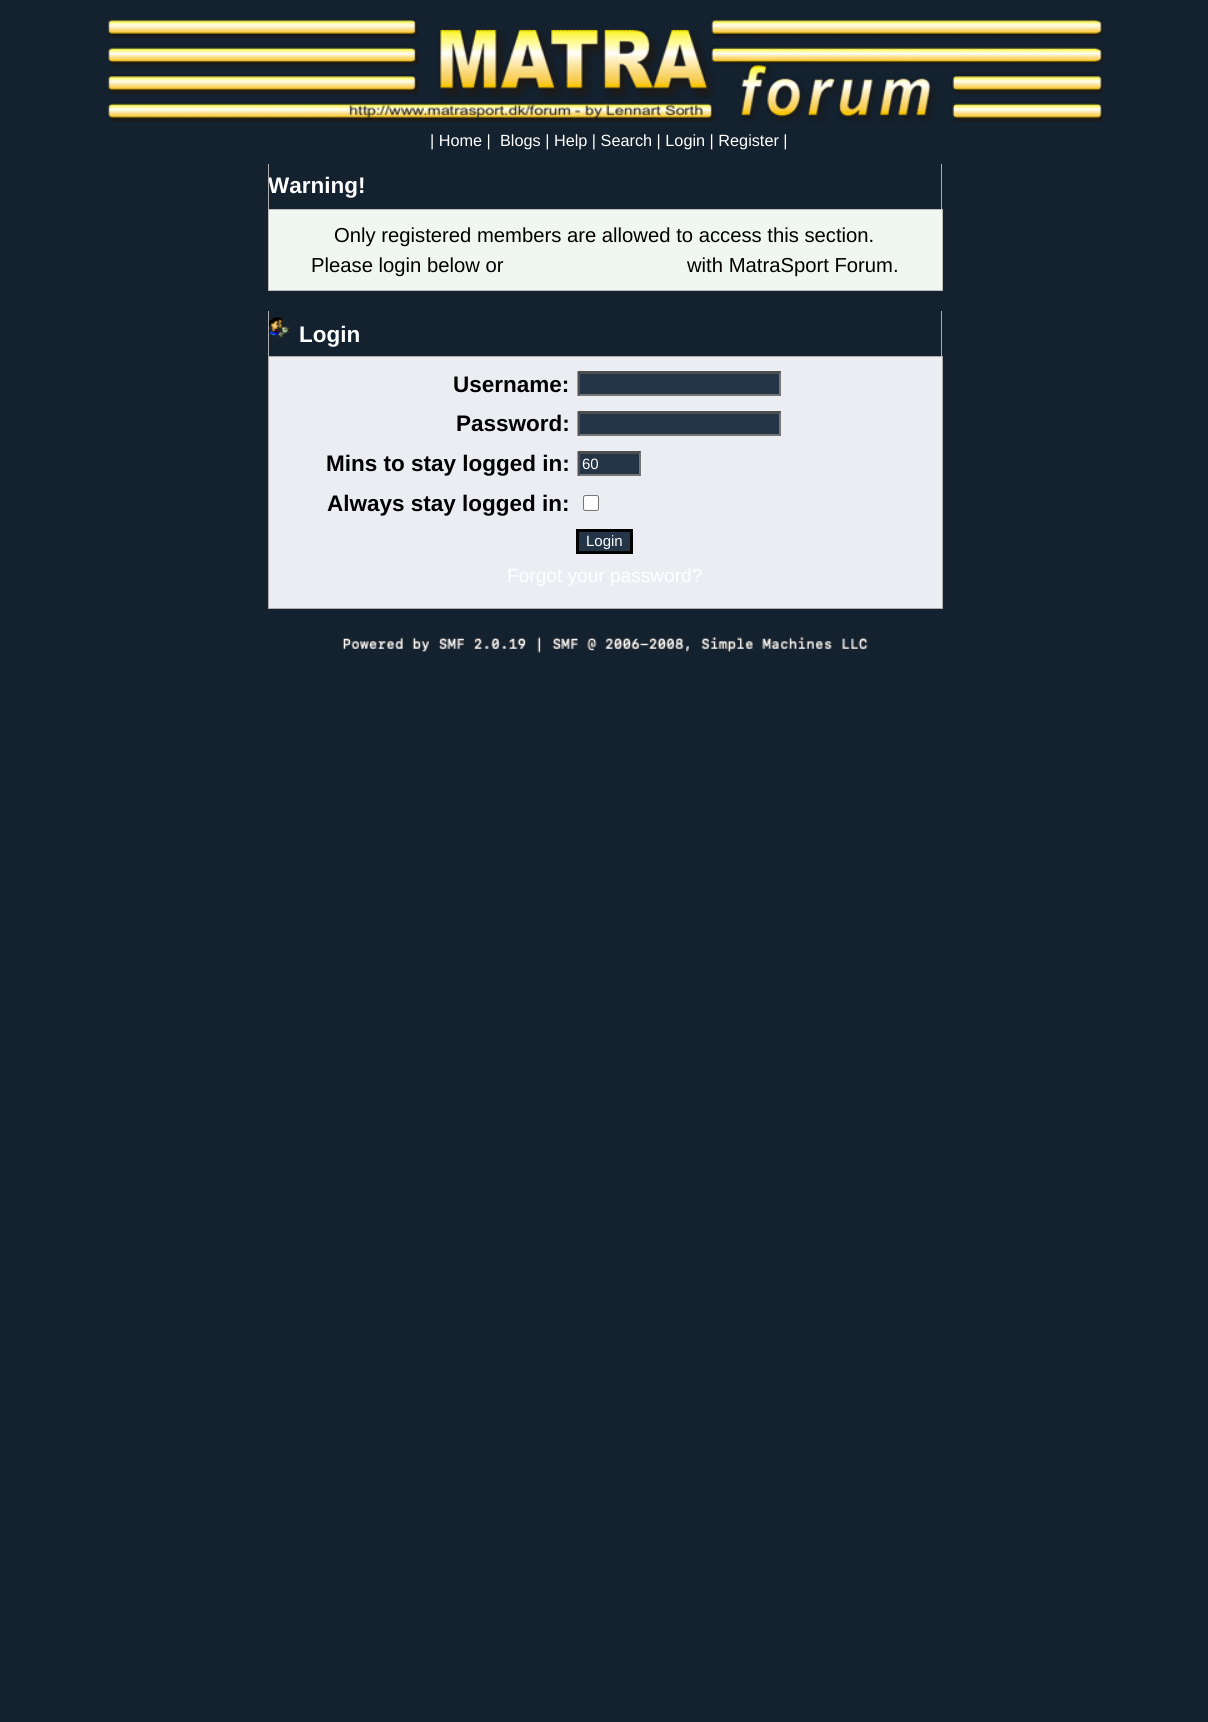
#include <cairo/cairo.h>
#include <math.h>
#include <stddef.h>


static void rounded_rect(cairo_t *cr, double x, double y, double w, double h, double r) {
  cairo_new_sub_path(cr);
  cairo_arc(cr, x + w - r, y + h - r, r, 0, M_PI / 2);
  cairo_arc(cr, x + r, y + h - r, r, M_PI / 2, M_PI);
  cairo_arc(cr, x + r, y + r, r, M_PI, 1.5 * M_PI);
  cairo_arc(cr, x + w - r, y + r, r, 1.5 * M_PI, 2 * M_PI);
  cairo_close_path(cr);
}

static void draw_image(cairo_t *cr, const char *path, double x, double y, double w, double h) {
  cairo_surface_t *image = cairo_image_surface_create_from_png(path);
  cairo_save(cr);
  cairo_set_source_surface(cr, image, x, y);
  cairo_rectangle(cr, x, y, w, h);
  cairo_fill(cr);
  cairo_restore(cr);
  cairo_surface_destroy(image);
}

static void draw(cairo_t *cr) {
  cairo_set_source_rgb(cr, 20 / 255.0, 33 / 255.0, 46 / 255.0);
  cairo_paint(cr);
  draw_image(cr, "images/1.png", 107, 19, 996, 103);
  cairo_set_source_rgb(cr, 173 / 255.0, 173 / 255.0, 173 / 255.0);
  cairo_rectangle(cr, 941, 164, 1, 45);
  cairo_fill(cr);
  cairo_rectangle(cr, 268, 164, 1, 45);
  cairo_fill(cr);
  cairo_set_source_rgb(cr, 240 / 255.0, 246 / 255.0, 240 / 255.0);
  cairo_rectangle(cr, 268.5, 209.5, 674, 81);
  cairo_fill_preserve(cr);
  cairo_set_source_rgb(cr, 187 / 255.0, 187 / 255.0, 187 / 255.0);
  cairo_set_line_width(cr, 1);
  cairo_stroke(cr);
  cairo_set_source_rgb(cr, 173 / 255.0, 173 / 255.0, 173 / 255.0);
  cairo_rectangle(cr, 941, 311, 1, 45);
  cairo_fill(cr);
  cairo_rectangle(cr, 268, 311, 1, 45);
  cairo_fill(cr);
  draw_image(cr, "images/2.png", 268, 317, 21, 21);
  cairo_set_source_rgb(cr, 236 / 255.0, 237 / 255.0, 243 / 255.0);
  cairo_rectangle(cr, 268.5, 356.5, 674, 252);
  cairo_fill_preserve(cr);
  cairo_set_source_rgb(cr, 173 / 255.0, 173 / 255.0, 173 / 255.0);
  cairo_stroke(cr);
  cairo_set_source_rgb(cr, 35 / 255.0, 53 / 255.0, 71 / 255.0);
  cairo_rectangle(cr, 578, 371, 203, 25);
  cairo_fill(cr);
  cairo_set_source_rgb(cr, 79 / 255.0, 79 / 255.0, 79 / 255.0);
  cairo_new_path(cr);
  cairo_move_to(cr, 578, 371);
  cairo_line_to(cr, 781, 371);
  cairo_line_to(cr, 779, 374);
  cairo_line_to(cr, 580, 374);
  cairo_close_path(cr);
  cairo_fill(cr);
  cairo_set_source_rgb(cr, 118 / 255.0, 118 / 255.0, 118 / 255.0);
  cairo_new_path(cr);
  cairo_move_to(cr, 781, 371);
  cairo_line_to(cr, 781, 396);
  cairo_line_to(cr, 779, 394);
  cairo_line_to(cr, 779, 374);
  cairo_close_path(cr);
  cairo_fill(cr);
  cairo_new_path(cr);
  cairo_move_to(cr, 781, 396);
  cairo_line_to(cr, 578, 396);
  cairo_line_to(cr, 580, 394);
  cairo_line_to(cr, 779, 394);
  cairo_close_path(cr);
  cairo_fill(cr);
  cairo_set_source_rgb(cr, 79 / 255.0, 79 / 255.0, 79 / 255.0);
  cairo_new_path(cr);
  cairo_move_to(cr, 577.5, 396);
  cairo_line_to(cr, 577.5, 371);
  cairo_line_to(cr, 580, 374);
  cairo_line_to(cr, 580, 394);
  cairo_close_path(cr);
  cairo_fill(cr);
  cairo_set_source_rgb(cr, 35 / 255.0, 53 / 255.0, 71 / 255.0);
  cairo_rectangle(cr, 578, 411, 203, 25);
  cairo_fill(cr);
  cairo_set_source_rgb(cr, 79 / 255.0, 79 / 255.0, 79 / 255.0);
  cairo_new_path(cr);
  cairo_move_to(cr, 578, 411);
  cairo_line_to(cr, 781, 411);
  cairo_line_to(cr, 779, 414);
  cairo_line_to(cr, 580, 414);
  cairo_close_path(cr);
  cairo_fill(cr);
  cairo_set_source_rgb(cr, 118 / 255.0, 118 / 255.0, 118 / 255.0);
  cairo_new_path(cr);
  cairo_move_to(cr, 781, 411);
  cairo_line_to(cr, 781, 436);
  cairo_line_to(cr, 779, 434);
  cairo_line_to(cr, 779, 414);
  cairo_close_path(cr);
  cairo_fill(cr);
  cairo_new_path(cr);
  cairo_move_to(cr, 781, 436);
  cairo_line_to(cr, 578, 436);
  cairo_line_to(cr, 580, 434);
  cairo_line_to(cr, 779, 434);
  cairo_close_path(cr);
  cairo_fill(cr);
  cairo_set_source_rgb(cr, 79 / 255.0, 79 / 255.0, 79 / 255.0);
  cairo_new_path(cr);
  cairo_move_to(cr, 577.5, 436);
  cairo_line_to(cr, 577.5, 411);
  cairo_line_to(cr, 580, 414);
  cairo_line_to(cr, 580, 434);
  cairo_close_path(cr);
  cairo_fill(cr);
  cairo_set_source_rgb(cr, 35 / 255.0, 53 / 255.0, 71 / 255.0);
  cairo_rectangle(cr, 578, 451, 63, 25);
  cairo_fill(cr);
  cairo_set_source_rgb(cr, 79 / 255.0, 79 / 255.0, 79 / 255.0);
  cairo_new_path(cr);
  cairo_move_to(cr, 578, 451);
  cairo_line_to(cr, 641, 451);
  cairo_line_to(cr, 639, 454);
  cairo_line_to(cr, 580, 454);
  cairo_close_path(cr);
  cairo_fill(cr);
  cairo_set_source_rgb(cr, 118 / 255.0, 118 / 255.0, 118 / 255.0);
  cairo_new_path(cr);
  cairo_move_to(cr, 641, 451);
  cairo_line_to(cr, 641, 476);
  cairo_line_to(cr, 639, 474);
  cairo_line_to(cr, 639, 454);
  cairo_close_path(cr);
  cairo_fill(cr);
  cairo_new_path(cr);
  cairo_move_to(cr, 641, 476);
  cairo_line_to(cr, 578, 476);
  cairo_line_to(cr, 580, 474);
  cairo_line_to(cr, 639, 474);
  cairo_close_path(cr);
  cairo_fill(cr);
  cairo_set_source_rgb(cr, 79 / 255.0, 79 / 255.0, 79 / 255.0);
  cairo_new_path(cr);
  cairo_move_to(cr, 577.5, 476);
  cairo_line_to(cr, 577.5, 451);
  cairo_line_to(cr, 580, 454);
  cairo_line_to(cr, 580, 474);
  cairo_close_path(cr);
  cairo_fill(cr);
  cairo_set_source_rgb(cr, 1, 1, 1);
  rounded_rect(cr, 583.5, 495.5, 15, 15, 2);
  cairo_fill_preserve(cr);
  cairo_set_source_rgb(cr, 118 / 255.0, 118 / 255.0, 118 / 255.0);
  cairo_stroke(cr);
  cairo_set_source_rgb(cr, 35 / 255.0, 53 / 255.0, 71 / 255.0);
  cairo_rectangle(cr, 577.5, 530.5, 54, 22);
  cairo_fill_preserve(cr);
  cairo_set_source_rgb(cr, 0, 0, 0);
  cairo_set_line_width(cr, 3);
  cairo_stroke(cr);
  draw_image(cr, "images/3.png", 342, 637, 526, 16);
  cairo_select_font_face(cr, "Liberation Sans", CAIRO_FONT_SLANT_NORMAL, CAIRO_FONT_WEIGHT_NORMAL);
  cairo_set_font_size(cr, 16.25);
  cairo_set_source_rgb(cr, 1, 1, 1);
  cairo_move_to(cr, 430, 146);
  cairo_show_text(cr, "| Home |");
  cairo_move_to(cr, 500, 146);
  cairo_show_text(cr, "Blogs | Help | Search | Login | Register |");
  cairo_save(cr);
  cairo_rectangle(cr, 269, 164, 672, 45);
  cairo_clip(cr);
  cairo_select_font_face(cr, "Liberation Sans", CAIRO_FONT_SLANT_NORMAL, CAIRO_FONT_WEIGHT_BOLD);
  cairo_set_font_size(cr, 22.5);
  cairo_move_to(cr, 268, 193);
  cairo_show_text(cr, "Warning!");
  cairo_restore(cr);
  cairo_set_font_size(cr, 20.25);
  cairo_set_source_rgb(cr, 0, 0, 0);
  cairo_move_to(cr, 334, 242);
  cairo_show_text(cr, "Only registered members are allowed to access this section.");
  cairo_move_to(cr, 311, 272);
  cairo_show_text(cr, "Please login below or");
  cairo_move_to(cr, 687, 272);
  cairo_show_text(cr, "with MatraSport Forum.");
  cairo_select_font_face(cr, "Liberation Sans", CAIRO_FONT_SLANT_NORMAL, CAIRO_FONT_WEIGHT_BOLD);
  cairo_set_font_size(cr, 22.5);
  cairo_set_source_rgb(cr, 1, 1, 1);
  cairo_move_to(cr, 299, 342);
  cairo_show_text(cr, "Login");
  cairo_set_source_rgb(cr, 0, 0, 0);
  cairo_move_to(cr, 453, 392);
  cairo_show_text(cr, "Username:");
  cairo_move_to(cr, 456, 431);
  cairo_show_text(cr, "Password:");
  cairo_move_to(cr, 326, 471);
  cairo_show_text(cr, "Mins to stay logged in:");
  cairo_select_font_face(cr, "Liberation Sans", CAIRO_FONT_SLANT_NORMAL, CAIRO_FONT_WEIGHT_NORMAL);
  cairo_set_font_size(cr, 15);
  cairo_set_source_rgb(cr, 1, 1, 1);
  cairo_move_to(cr, 582, 469);
  cairo_show_text(cr, "60");
  cairo_select_font_face(cr, "Liberation Sans", CAIRO_FONT_SLANT_NORMAL, CAIRO_FONT_WEIGHT_BOLD);
  cairo_set_font_size(cr, 22.5);
  cairo_set_source_rgb(cr, 0, 0, 0);
  cairo_move_to(cr, 327, 511);
  cairo_show_text(cr, "Always stay logged in:");
  cairo_select_font_face(cr, "Liberation Sans", CAIRO_FONT_SLANT_NORMAL, CAIRO_FONT_WEIGHT_NORMAL);
  cairo_set_font_size(cr, 15);
  cairo_set_source_rgb(cr, 1, 1, 1);
  cairo_move_to(cr, 586, 546);
  cairo_show_text(cr, "Login");
  cairo_set_font_size(cr, 19.1);
  cairo_move_to(cr, 507, 582);
  cairo_show_text(cr, "Forgot your password?");
}

int main(void) {
  cairo_surface_t *surface = cairo_image_surface_create(CAIRO_FORMAT_RGB24, 1208, 1722);
  cairo_t *cr = cairo_create(surface);
  cairo_font_options_t *options = cairo_font_options_create();
  cairo_font_options_set_hint_metrics(options, CAIRO_HINT_METRICS_OFF);
  cairo_font_options_set_hint_style(options, CAIRO_HINT_STYLE_NONE);
  cairo_set_font_options(cr, options);
  cairo_set_miter_limit(cr, 4);
  draw(cr);
  cairo_surface_write_to_png(surface, "out.png");
  cairo_font_options_destroy(options);
  cairo_destroy(cr);
  cairo_surface_destroy(surface);
  return 0;
}
